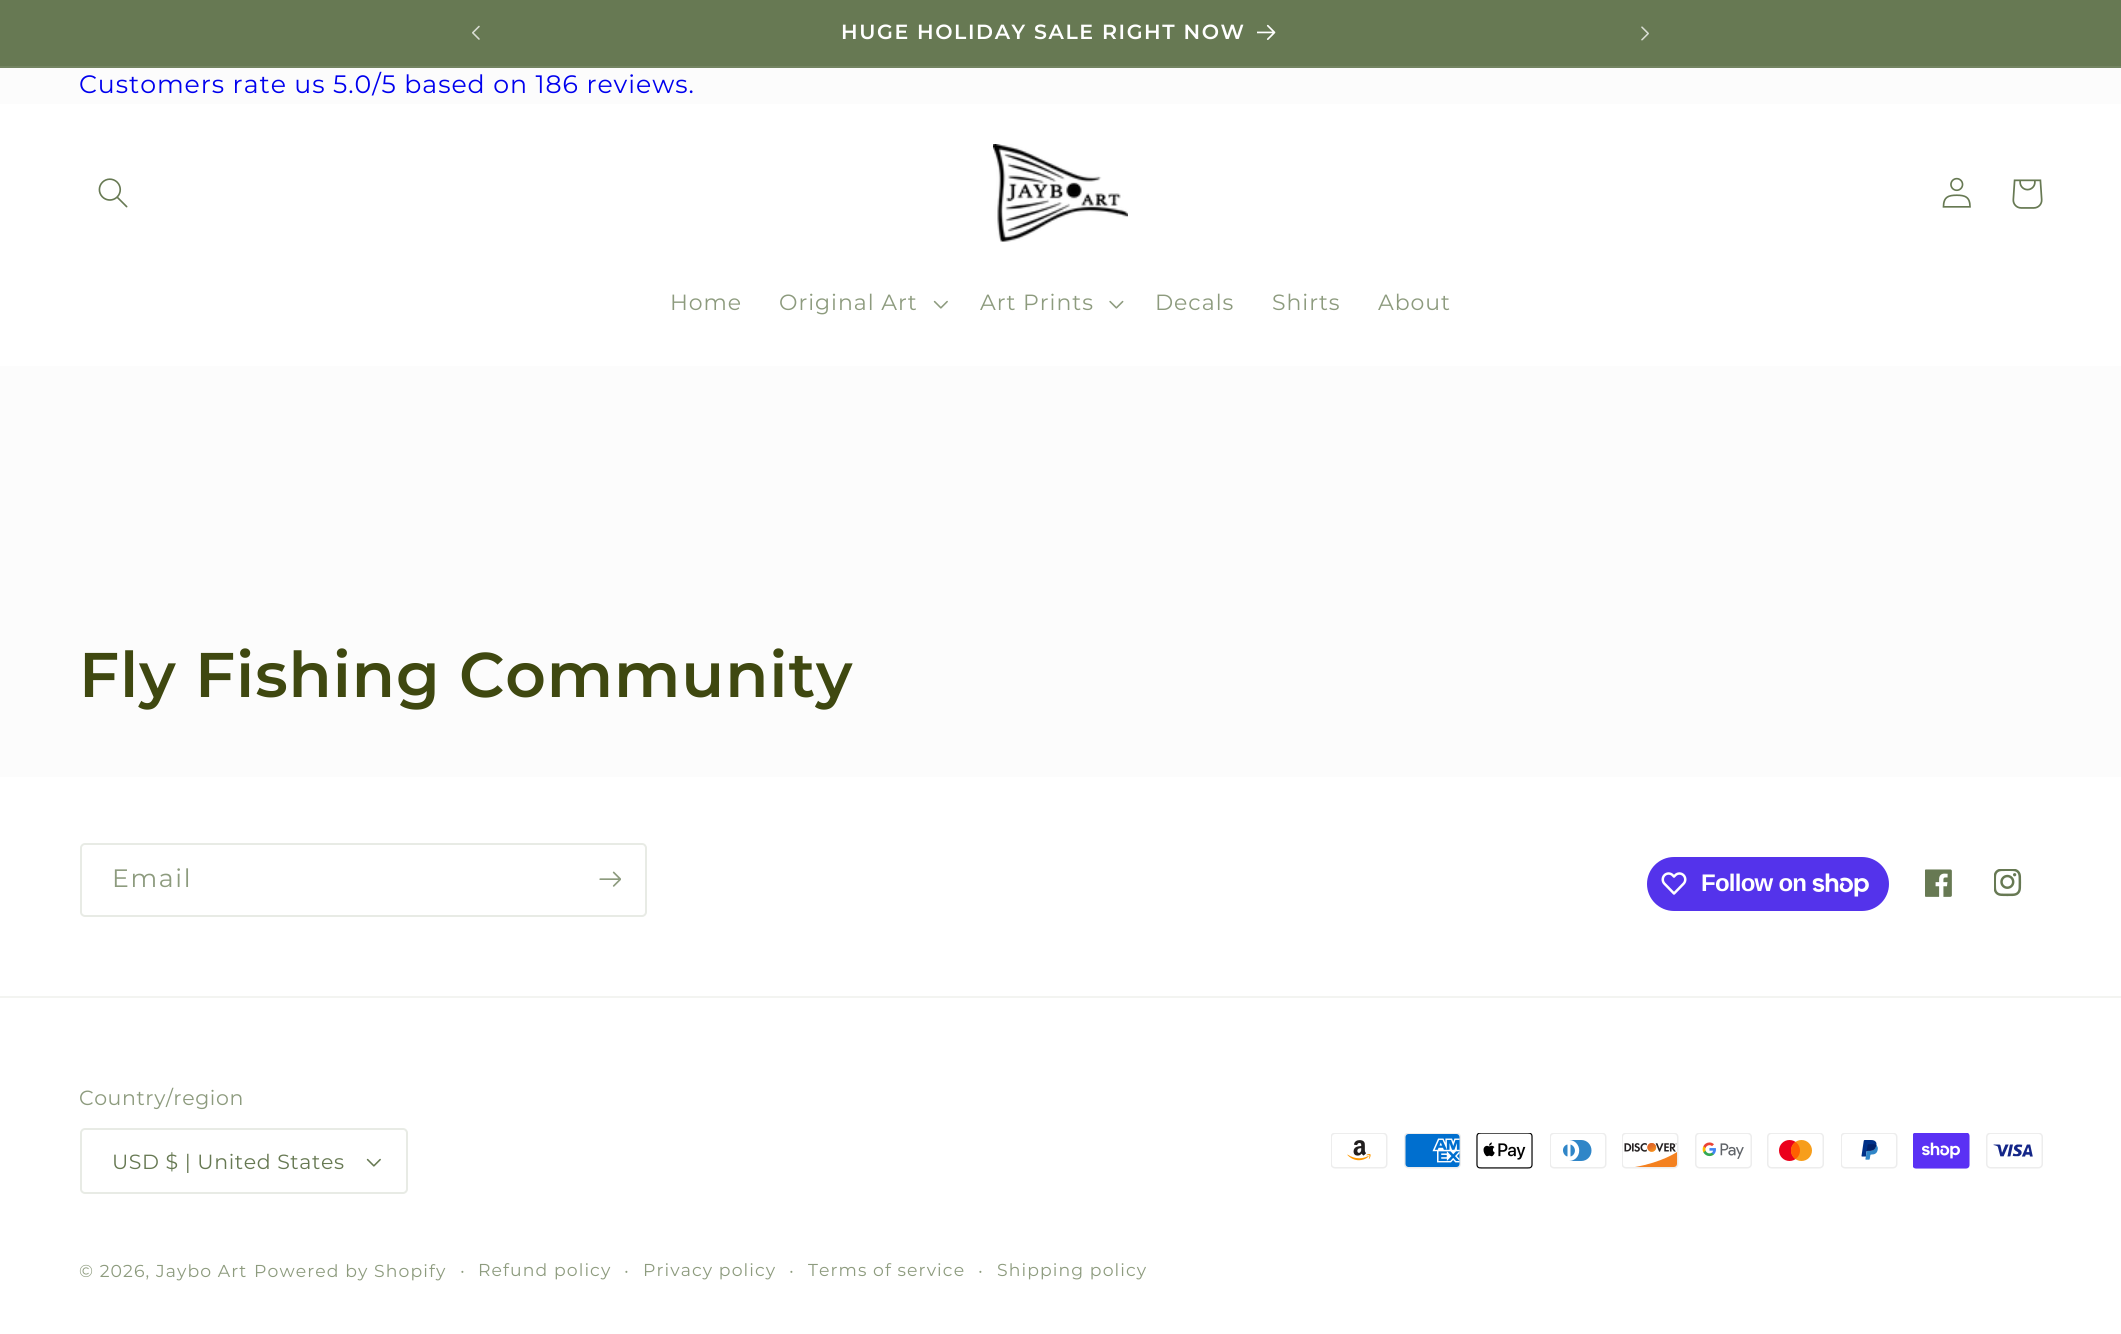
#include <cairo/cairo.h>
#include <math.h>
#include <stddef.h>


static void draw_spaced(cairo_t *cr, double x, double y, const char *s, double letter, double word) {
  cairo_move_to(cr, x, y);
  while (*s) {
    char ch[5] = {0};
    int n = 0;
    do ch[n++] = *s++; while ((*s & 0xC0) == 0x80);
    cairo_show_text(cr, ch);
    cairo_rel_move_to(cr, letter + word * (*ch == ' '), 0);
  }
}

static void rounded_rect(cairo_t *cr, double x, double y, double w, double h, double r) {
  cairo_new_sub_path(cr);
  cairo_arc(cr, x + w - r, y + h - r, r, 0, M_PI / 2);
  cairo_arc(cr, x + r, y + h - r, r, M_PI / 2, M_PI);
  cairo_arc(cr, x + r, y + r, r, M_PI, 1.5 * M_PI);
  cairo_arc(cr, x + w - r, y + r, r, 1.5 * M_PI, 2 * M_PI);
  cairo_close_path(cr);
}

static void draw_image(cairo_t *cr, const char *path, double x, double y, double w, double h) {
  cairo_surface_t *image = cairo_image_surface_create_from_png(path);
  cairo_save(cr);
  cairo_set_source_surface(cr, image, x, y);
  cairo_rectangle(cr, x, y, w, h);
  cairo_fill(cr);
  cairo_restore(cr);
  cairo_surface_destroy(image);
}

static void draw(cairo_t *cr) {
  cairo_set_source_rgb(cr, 252 / 255.0, 252 / 255.0, 252 / 255.0);
  cairo_paint(cr);
  cairo_set_source_rgb(cr, 103 / 255.0, 121 / 255.0, 83 / 255.0);
  cairo_rectangle(cr, 0, 0, 2121, 66);
  cairo_fill(cr);
  cairo_set_source_rgb(cr, 115 / 255.0, 132 / 255.0, 97 / 255.0);
  cairo_rectangle(cr, 0, 66, 2121, 2);
  cairo_fill(cr);
  draw_image(cr, "images/1.png", 472, 25, 8, 15);
  draw_image(cr, "images/2.png", 1257, 24, 19, 16);
  draw_image(cr, "images/3.png", 1641, 26, 8, 15);
  cairo_set_source_rgb(cr, 1, 1, 1);
  cairo_rectangle(cr, 0, 104, 2121, 262);
  cairo_fill(cr);
  draw_image(cr, "images/4.png", 98, 178, 30, 30);
  draw_image(cr, "images/5.png", 993, 144, 135, 98);
  draw_image(cr, "images/6.png", 1942, 177, 29, 31);
  draw_image(cr, "images/7.png", 2012, 179, 31, 30);
  draw_image(cr, "images/8.png", 933, 300, 15, 9);
  draw_image(cr, "images/9.png", 1109, 300, 15, 9);
  cairo_rectangle(cr, 0, 777, 2121, 557);
  cairo_fill(cr);
  rounded_rect(cr, 81, 844, 565, 72, 4);
  cairo_set_source_rgba(cr, 103 / 255.0, 121 / 255.0, 83 / 255.0, 0.15);
  cairo_stroke(cr);
  draw_image(cr, "images/10.png", 599, 871, 22, 16);
  cairo_set_source_rgb(cr, 84 / 255.0, 51 / 255.0, 235 / 255.0);
  rounded_rect(cr, 1647, 857, 242, 54, 27);
  cairo_fill(cr);
  draw_image(cr, "images/11.png", 1661, 872, 26, 23);
  draw_image(cr, "images/12.png", 1812, 873, 57, 24);
  draw_image(cr, "images/13.png", 1925, 869, 27, 28);
  draw_image(cr, "images/14.png", 1994, 869, 28, 28);
  cairo_set_source_rgb(cr, 243 / 255.0, 244 / 255.0, 241 / 255.0);
  cairo_rectangle(cr, 0, 996, 2121, 2);
  cairo_fill(cr);
  draw_image(cr, "images/15.png", 366, 1158, 15, 9);
  rounded_rect(cr, 81, 1129, 326, 64, 4);
  cairo_set_source_rgb(cr, 232 / 255.0, 235 / 255.0, 229 / 255.0);
  cairo_stroke(cr);
  draw_image(cr, "images/16.png", 1331, 1133, 57, 36);
  draw_image(cr, "images/17.png", 1404, 1133, 57, 36);
  draw_image(cr, "images/18.png", 1476, 1133, 57, 36);
  draw_image(cr, "images/19.png", 1550, 1133, 57, 36);
  draw_image(cr, "images/20.png", 1622, 1133, 57, 36);
  draw_image(cr, "images/21.png", 1695, 1133, 57, 36);
  draw_image(cr, "images/22.png", 1767, 1133, 57, 36);
  draw_image(cr, "images/23.png", 1841, 1133, 57, 36);
  draw_image(cr, "images/24.png", 1913, 1133, 57, 36);
  draw_image(cr, "images/25.png", 1986, 1133, 57, 36);
  cairo_select_font_face(cr, "Montserrat SemiBold", CAIRO_FONT_SLANT_NORMAL, CAIRO_FONT_WEIGHT_NORMAL);
  cairo_set_font_size(cr, 20.5);
  cairo_set_source_rgb(cr, 1, 1, 1);
  draw_spaced(cr, 841, 39, "HUGE HOLIDAY SALE RIGHT NOW", 1.6, 0);
  cairo_select_font_face(cr, "Montserrat", CAIRO_FONT_SLANT_NORMAL, CAIRO_FONT_WEIGHT_NORMAL);
  cairo_set_font_size(cr, 25.2);
  cairo_set_source_rgb(cr, 0, 0, 238 / 255.0);
  draw_spaced(cr, 79, 93, "Customers rate us 5.0/5 based on 186 reviews.", 0.95, 0);
  cairo_set_font_size(cr, 22);
  cairo_set_source_rgb(cr, 141 / 255.0, 155 / 255.0, 126 / 255.0);
  draw_spaced(cr, 670, 310, "Home", 0.95, 0);
  draw_spaced(cr, 779, 310, "Original Art", 0.95, 0);
  draw_spaced(cr, 980, 310, "Art Prints", 0.95, 0);
  draw_spaced(cr, 1155, 310, "Decals", 0.95, 0);
  draw_spaced(cr, 1272, 310, "Shirts", 0.95, 0);
  draw_spaced(cr, 1378, 310, "About", 0.95, 0);
  cairo_select_font_face(cr, "Montserrat SemiBold", CAIRO_FONT_SLANT_NORMAL, CAIRO_FONT_WEIGHT_NORMAL);
  cairo_set_font_size(cr, 63);
  cairo_set_source_rgb(cr, 63 / 255.0, 72 / 255.0, 16 / 255.0);
  draw_spaced(cr, 79, 697, "Fly Fishing Community", 0.95, 0);
  cairo_select_font_face(cr, "Montserrat", CAIRO_FONT_SLANT_NORMAL, CAIRO_FONT_WEIGHT_NORMAL);
  cairo_set_font_size(cr, 25.2);
  cairo_set_source_rgb(cr, 141 / 255.0, 155 / 255.0, 126 / 255.0);
  draw_spaced(cr, 112, 887, "Email", 1.6, 0);
  cairo_select_font_face(cr, "Liberation Sans", CAIRO_FONT_SLANT_NORMAL, CAIRO_FONT_WEIGHT_BOLD);
  cairo_set_font_size(cr, 24);
  cairo_set_source_rgb(cr, 1, 1, 1);
  draw_spaced(cr, 1701, 891, "Follow on", -0.75, 0);
  cairo_select_font_face(cr, "Montserrat", CAIRO_FONT_SLANT_NORMAL, CAIRO_FONT_WEIGHT_NORMAL);
  cairo_set_font_size(cr, 20.5);
  cairo_set_source_rgb(cr, 141 / 255.0, 155 / 255.0, 126 / 255.0);
  draw_spaced(cr, 79, 1105, "Country/region", 0.6, 0);
  cairo_set_source_rgb(cr, 103 / 255.0, 121 / 255.0, 83 / 255.0);
  draw_spaced(cr, 112, 1169, "USD $ | United States", 0.6, 0);
  cairo_set_font_size(cr, 17.25);
  cairo_set_source_rgb(cr, 141 / 255.0, 155 / 255.0, 126 / 255.0);
  draw_spaced(cr, 79, 1277, "© 2026, Jaybo Art", 1.1, 0);
  draw_spaced(cr, 254, 1277, "Powered by Shopify", 1.1, 0);
  cairo_set_font_size(cr, 19);
  draw_spaced(cr, 460, 1277, "·", 1.1, 0);
  cairo_set_font_size(cr, 17.25);
  draw_spaced(cr, 478, 1276, "Refund policy", 1.1, 0);
  cairo_set_font_size(cr, 19);
  draw_spaced(cr, 624, 1277, "·", 1.1, 0);
  cairo_set_font_size(cr, 17.25);
  draw_spaced(cr, 643, 1276, "Privacy policy", 1.1, 0);
  cairo_set_font_size(cr, 19);
  draw_spaced(cr, 789, 1277, "·", 1.1, 0);
  cairo_set_font_size(cr, 17.25);
  draw_spaced(cr, 808, 1276, "Terms of service", 1.1, 0);
  cairo_set_font_size(cr, 19);
  draw_spaced(cr, 978, 1277, "·", 1.1, 0);
  cairo_set_font_size(cr, 17.25);
  draw_spaced(cr, 997, 1276, "Shipping policy", 1.1, 0);
}

int main(void) {
  cairo_surface_t *surface = cairo_image_surface_create(CAIRO_FORMAT_RGB24, 2121, 1334);
  cairo_t *cr = cairo_create(surface);
  cairo_font_options_t *options = cairo_font_options_create();
  cairo_font_options_set_hint_metrics(options, CAIRO_HINT_METRICS_OFF);
  cairo_font_options_set_hint_style(options, CAIRO_HINT_STYLE_NONE);
  cairo_set_font_options(cr, options);
  cairo_set_miter_limit(cr, 4);
  draw(cr);
  cairo_surface_write_to_png(surface, "out.png");
  cairo_font_options_destroy(options);
  cairo_destroy(cr);
  cairo_surface_destroy(surface);
  return 0;
}
